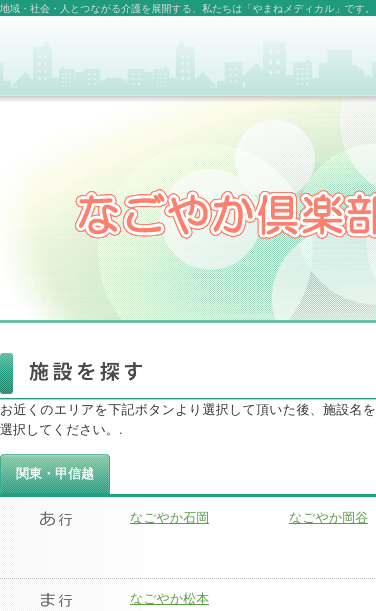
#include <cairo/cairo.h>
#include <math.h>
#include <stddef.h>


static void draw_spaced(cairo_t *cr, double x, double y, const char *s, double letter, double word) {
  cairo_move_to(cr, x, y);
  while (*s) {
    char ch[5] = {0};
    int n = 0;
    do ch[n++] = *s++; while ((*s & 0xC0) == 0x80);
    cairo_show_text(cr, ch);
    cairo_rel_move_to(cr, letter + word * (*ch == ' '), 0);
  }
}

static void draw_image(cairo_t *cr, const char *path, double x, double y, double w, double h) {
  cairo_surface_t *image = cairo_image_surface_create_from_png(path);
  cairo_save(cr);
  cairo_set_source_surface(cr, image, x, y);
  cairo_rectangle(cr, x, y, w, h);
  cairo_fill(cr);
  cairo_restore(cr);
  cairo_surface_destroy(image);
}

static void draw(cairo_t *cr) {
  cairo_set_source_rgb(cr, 1, 1, 1);
  cairo_paint(cr);
  draw_image(cr, "images/2.png", 0, 97, 376, 223);
  draw_image(cr, "images/1.png", 0, 0, 376, 102);
  cairo_set_source_rgb(cr, 104 / 255.0, 193 / 255.0, 160 / 255.0);
  cairo_rectangle(cr, 0, 320, 376, 3);
  cairo_fill(cr);
  draw_image(cr, "images/3.png", 0, 353, 376, 47);
  cairo_set_source_rgb(cr, 31 / 255.0, 161 / 255.0, 128 / 255.0);
  cairo_rectangle(cr, 0, 494, 376, 3);
  cairo_fill(cr);
  draw_image(cr, "images/4.png", 0, 454, 110, 40);
  draw_image(cr, "images/5.png", 0, 498, 143, 113);
  draw_image(cr, "images/6.png", 40, 511, 32, 15);
  cairo_new_path(cr);
  cairo_move_to(cr, 0, 578.5);
  cairo_line_to(cr, 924, 578.5);
  cairo_set_source_rgb(cr, 187 / 255.0, 187 / 255.0, 187 / 255.0);
  cairo_set_line_width(cr, 1);
  cairo_set_dash(cr, (double[]){1, 1}, 2, 0);
  cairo_stroke(cr);
  cairo_set_source_rgb(cr, 88 / 255.0, 158 / 255.0, 67 / 255.0);
  cairo_rectangle(cr, 130, 523, 79, 1);
  cairo_fill(cr);
  cairo_rectangle(cr, 289, 523, 79, 1);
  cairo_fill(cr);
  draw_image(cr, "images/7.png", 40, 592, 32, 15);
  cairo_rectangle(cr, 130, 604, 79, 1);
  cairo_fill(cr);
  cairo_select_font_face(cr, "WenQuanYi Zen Hei Medium", CAIRO_FONT_SLANT_NORMAL, CAIRO_FONT_WEIGHT_NORMAL);
  cairo_set_font_size(cr, 10);
  cairo_set_source_rgb(cr, 222 / 255.0, 224 / 255.0, 219 / 255.0);
  cairo_move_to(cr, 0, 12);
  cairo_show_text(cr, "地域・社会・人とつながる介護を展開する、私たちは「やまねメディカル」です。");
  cairo_set_font_size(cr, 13);
  cairo_set_source_rgb(cr, 51 / 255.0, 51 / 255.0, 51 / 255.0);
  draw_spaced(cr, 0, 414, "お近くのエリアを下記ボタンより選択して頂いた後、施設名を", 0.25, 0);
  cairo_move_to(cr, 0, 434);
  cairo_show_text(cr, "選択してください。");
  cairo_select_font_face(cr, "Liberation Sans", CAIRO_FONT_SLANT_NORMAL, CAIRO_FONT_WEIGHT_NORMAL);
  cairo_move_to(cr, 119, 434);
  cairo_show_text(cr, ".");
  cairo_select_font_face(cr, "WenQuanYi Zen Hei", CAIRO_FONT_SLANT_NORMAL, CAIRO_FONT_WEIGHT_BOLD);
  cairo_set_source_rgb(cr, 1, 1, 1);
  cairo_move_to(cr, 16, 478);
  cairo_show_text(cr, "関東・甲信越");
  cairo_select_font_face(cr, "WenQuanYi Zen Hei Medium", CAIRO_FONT_SLANT_NORMAL, CAIRO_FONT_WEIGHT_NORMAL);
  cairo_set_source_rgb(cr, 88 / 255.0, 158 / 255.0, 67 / 255.0);
  cairo_move_to(cr, 130, 522);
  cairo_show_text(cr, "なごやか石岡");
  cairo_move_to(cr, 289, 522);
  cairo_show_text(cr, "なごやか岡谷");
  cairo_move_to(cr, 130, 603);
  cairo_show_text(cr, "なごやか松本");
}

int main(void) {
  cairo_surface_t *surface = cairo_image_surface_create(CAIRO_FORMAT_RGB24, 376, 611);
  cairo_t *cr = cairo_create(surface);
  cairo_font_options_t *options = cairo_font_options_create();
  cairo_font_options_set_hint_metrics(options, CAIRO_HINT_METRICS_OFF);
  cairo_font_options_set_hint_style(options, CAIRO_HINT_STYLE_NONE);
  cairo_set_font_options(cr, options);
  cairo_set_miter_limit(cr, 4);
  draw(cr);
  cairo_surface_write_to_png(surface, "out.png");
  cairo_font_options_destroy(options);
  cairo_destroy(cr);
  cairo_surface_destroy(surface);
  return 0;
}
